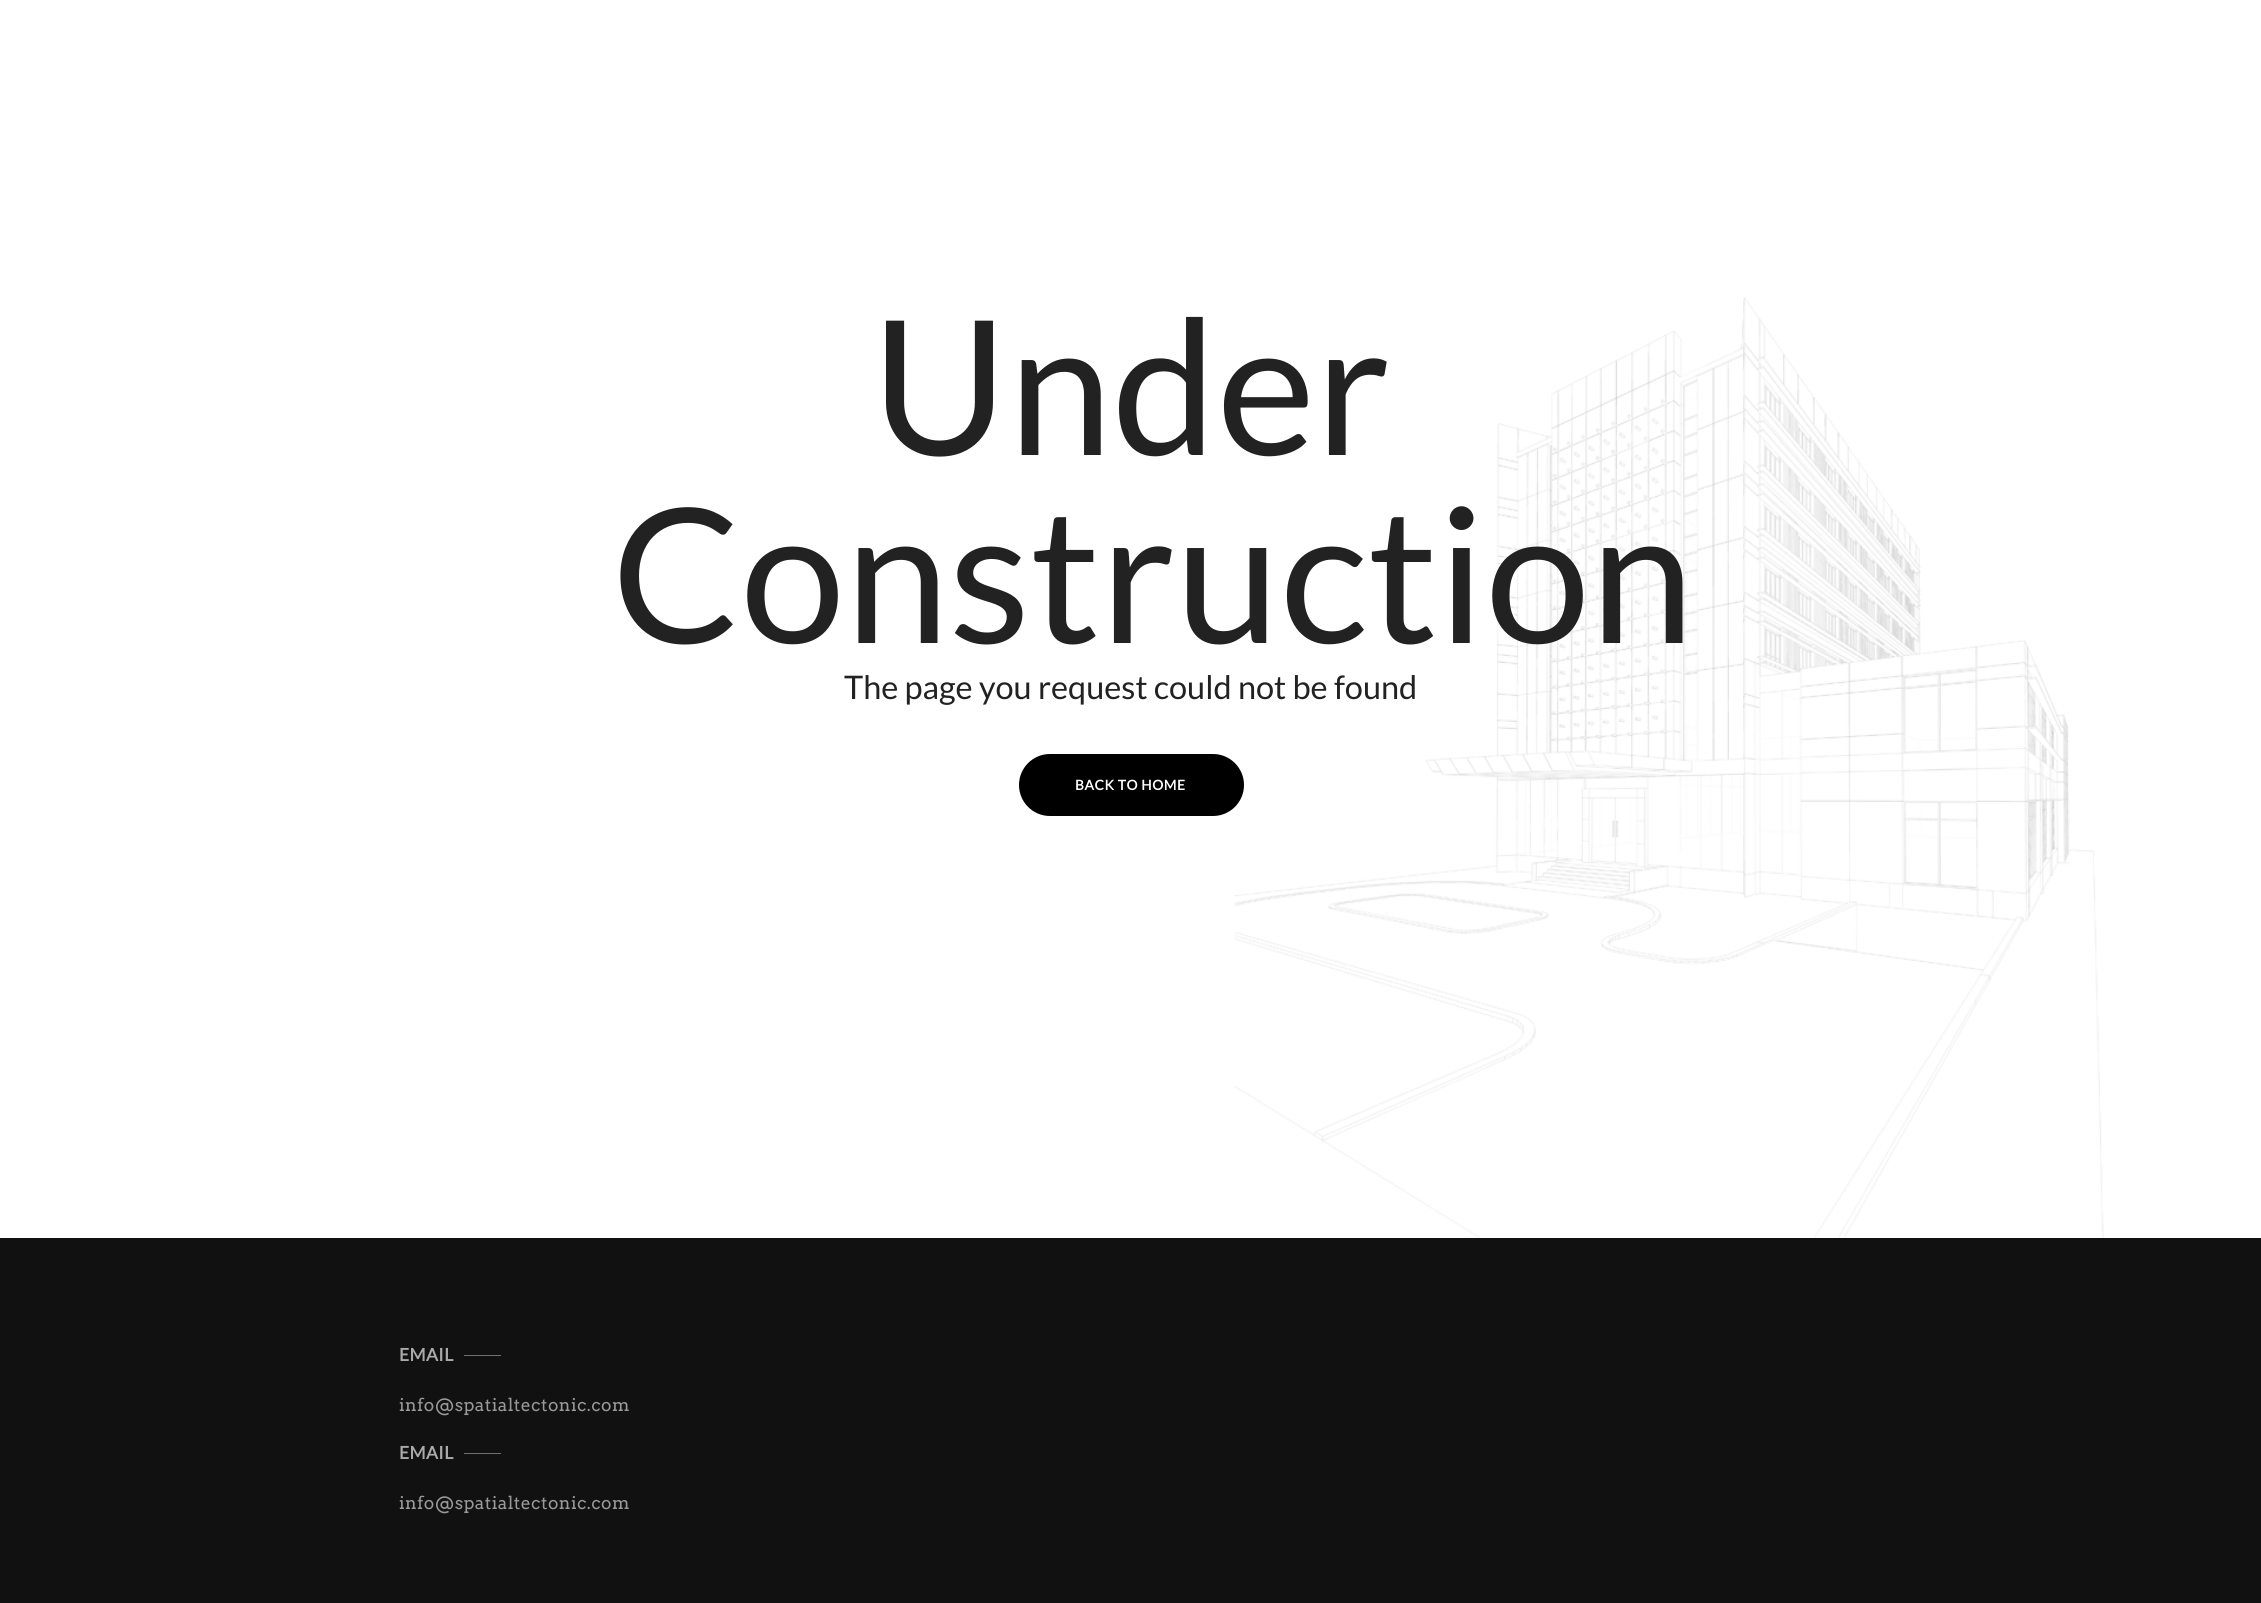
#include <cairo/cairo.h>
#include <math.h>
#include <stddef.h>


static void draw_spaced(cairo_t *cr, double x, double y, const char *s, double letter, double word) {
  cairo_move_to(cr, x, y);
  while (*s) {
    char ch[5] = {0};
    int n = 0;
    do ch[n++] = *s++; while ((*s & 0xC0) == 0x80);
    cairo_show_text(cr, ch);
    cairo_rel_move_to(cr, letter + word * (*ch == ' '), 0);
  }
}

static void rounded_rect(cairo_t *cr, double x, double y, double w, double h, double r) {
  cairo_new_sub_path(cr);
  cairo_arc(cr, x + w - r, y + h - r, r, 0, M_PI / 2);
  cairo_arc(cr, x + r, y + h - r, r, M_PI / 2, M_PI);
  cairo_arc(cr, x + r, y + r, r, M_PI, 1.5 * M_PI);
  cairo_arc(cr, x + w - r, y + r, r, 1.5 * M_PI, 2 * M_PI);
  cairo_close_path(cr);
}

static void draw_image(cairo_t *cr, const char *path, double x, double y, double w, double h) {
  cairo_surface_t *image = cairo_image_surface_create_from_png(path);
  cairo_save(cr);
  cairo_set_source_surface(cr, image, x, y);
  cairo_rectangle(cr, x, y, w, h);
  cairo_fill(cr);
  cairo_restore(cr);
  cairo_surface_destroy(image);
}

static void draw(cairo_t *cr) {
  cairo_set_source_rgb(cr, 1, 1, 1);
  cairo_paint(cr);
  draw_image(cr, "images/1.png", 1234, 297, 870, 941);
  cairo_set_source_rgb(cr, 0, 0, 0);
  rounded_rect(cr, 1019, 754, 225, 62, 31);
  cairo_fill(cr);
  cairo_set_source_rgb(cr, 17 / 255.0, 17 / 255.0, 17 / 255.0);
  cairo_rectangle(cr, 0, 1238, 2261, 365);
  cairo_fill(cr);
  cairo_set_source_rgb(cr, 112 / 255.0, 112 / 255.0, 112 / 255.0);
  cairo_rectangle(cr, 464, 1355, 37, 1);
  cairo_fill(cr);
  cairo_rectangle(cr, 464, 1453, 37, 1);
  cairo_fill(cr);
  cairo_select_font_face(cr, "Lato", CAIRO_FONT_SLANT_NORMAL, CAIRO_FONT_WEIGHT_NORMAL);
  cairo_set_font_size(cr, 187.5);
  cairo_set_source_rgb(cr, 34 / 255.0, 34 / 255.0, 34 / 255.0);
  cairo_move_to(cr, 871, 455);
  cairo_show_text(cr, "Under");
  cairo_move_to(cr, 612, 643);
  cairo_show_text(cr, "Construction");
  cairo_set_font_size(cr, 32.5);
  cairo_move_to(cr, 844, 699);
  cairo_show_text(cr, "The page you request could not be found");
  cairo_select_font_face(cr, "Lato", CAIRO_FONT_SLANT_NORMAL, CAIRO_FONT_WEIGHT_BOLD);
  cairo_set_font_size(cr, 13.75);
  cairo_set_source_rgb(cr, 1, 1, 1);
  draw_spaced(cr, 1075, 790, "BACK TO HOME", 0.6, 0);
  cairo_set_font_size(cr, 17.5);
  cairo_set_source_rgb(cr, 170 / 255.0, 170 / 255.0, 170 / 255.0);
  draw_spaced(cr, 399, 1361, "EMAIL", 0.4, 0);
  cairo_select_font_face(cr, "Arvo", CAIRO_FONT_SLANT_NORMAL, CAIRO_FONT_WEIGHT_NORMAL);
  cairo_set_source_rgb(cr, 153 / 255.0, 153 / 255.0, 153 / 255.0);
  draw_spaced(cr, 399, 1411, "info@spatialtectonic.com", 0.4, 0);
  cairo_select_font_face(cr, "Lato", CAIRO_FONT_SLANT_NORMAL, CAIRO_FONT_WEIGHT_BOLD);
  cairo_set_source_rgb(cr, 170 / 255.0, 170 / 255.0, 170 / 255.0);
  draw_spaced(cr, 399, 1459, "EMAIL", 0.4, 0);
  cairo_select_font_face(cr, "Arvo", CAIRO_FONT_SLANT_NORMAL, CAIRO_FONT_WEIGHT_NORMAL);
  cairo_set_source_rgb(cr, 153 / 255.0, 153 / 255.0, 153 / 255.0);
  draw_spaced(cr, 399, 1509, "info@spatialtectonic.com", 0.4, 0);
}

int main(void) {
  cairo_surface_t *surface = cairo_image_surface_create(CAIRO_FORMAT_RGB24, 2261, 1603);
  cairo_t *cr = cairo_create(surface);
  cairo_font_options_t *options = cairo_font_options_create();
  cairo_font_options_set_hint_metrics(options, CAIRO_HINT_METRICS_OFF);
  cairo_font_options_set_hint_style(options, CAIRO_HINT_STYLE_NONE);
  cairo_set_font_options(cr, options);
  cairo_set_miter_limit(cr, 4);
  draw(cr);
  cairo_surface_write_to_png(surface, "out.png");
  cairo_font_options_destroy(options);
  cairo_destroy(cr);
  cairo_surface_destroy(surface);
  return 0;
}
